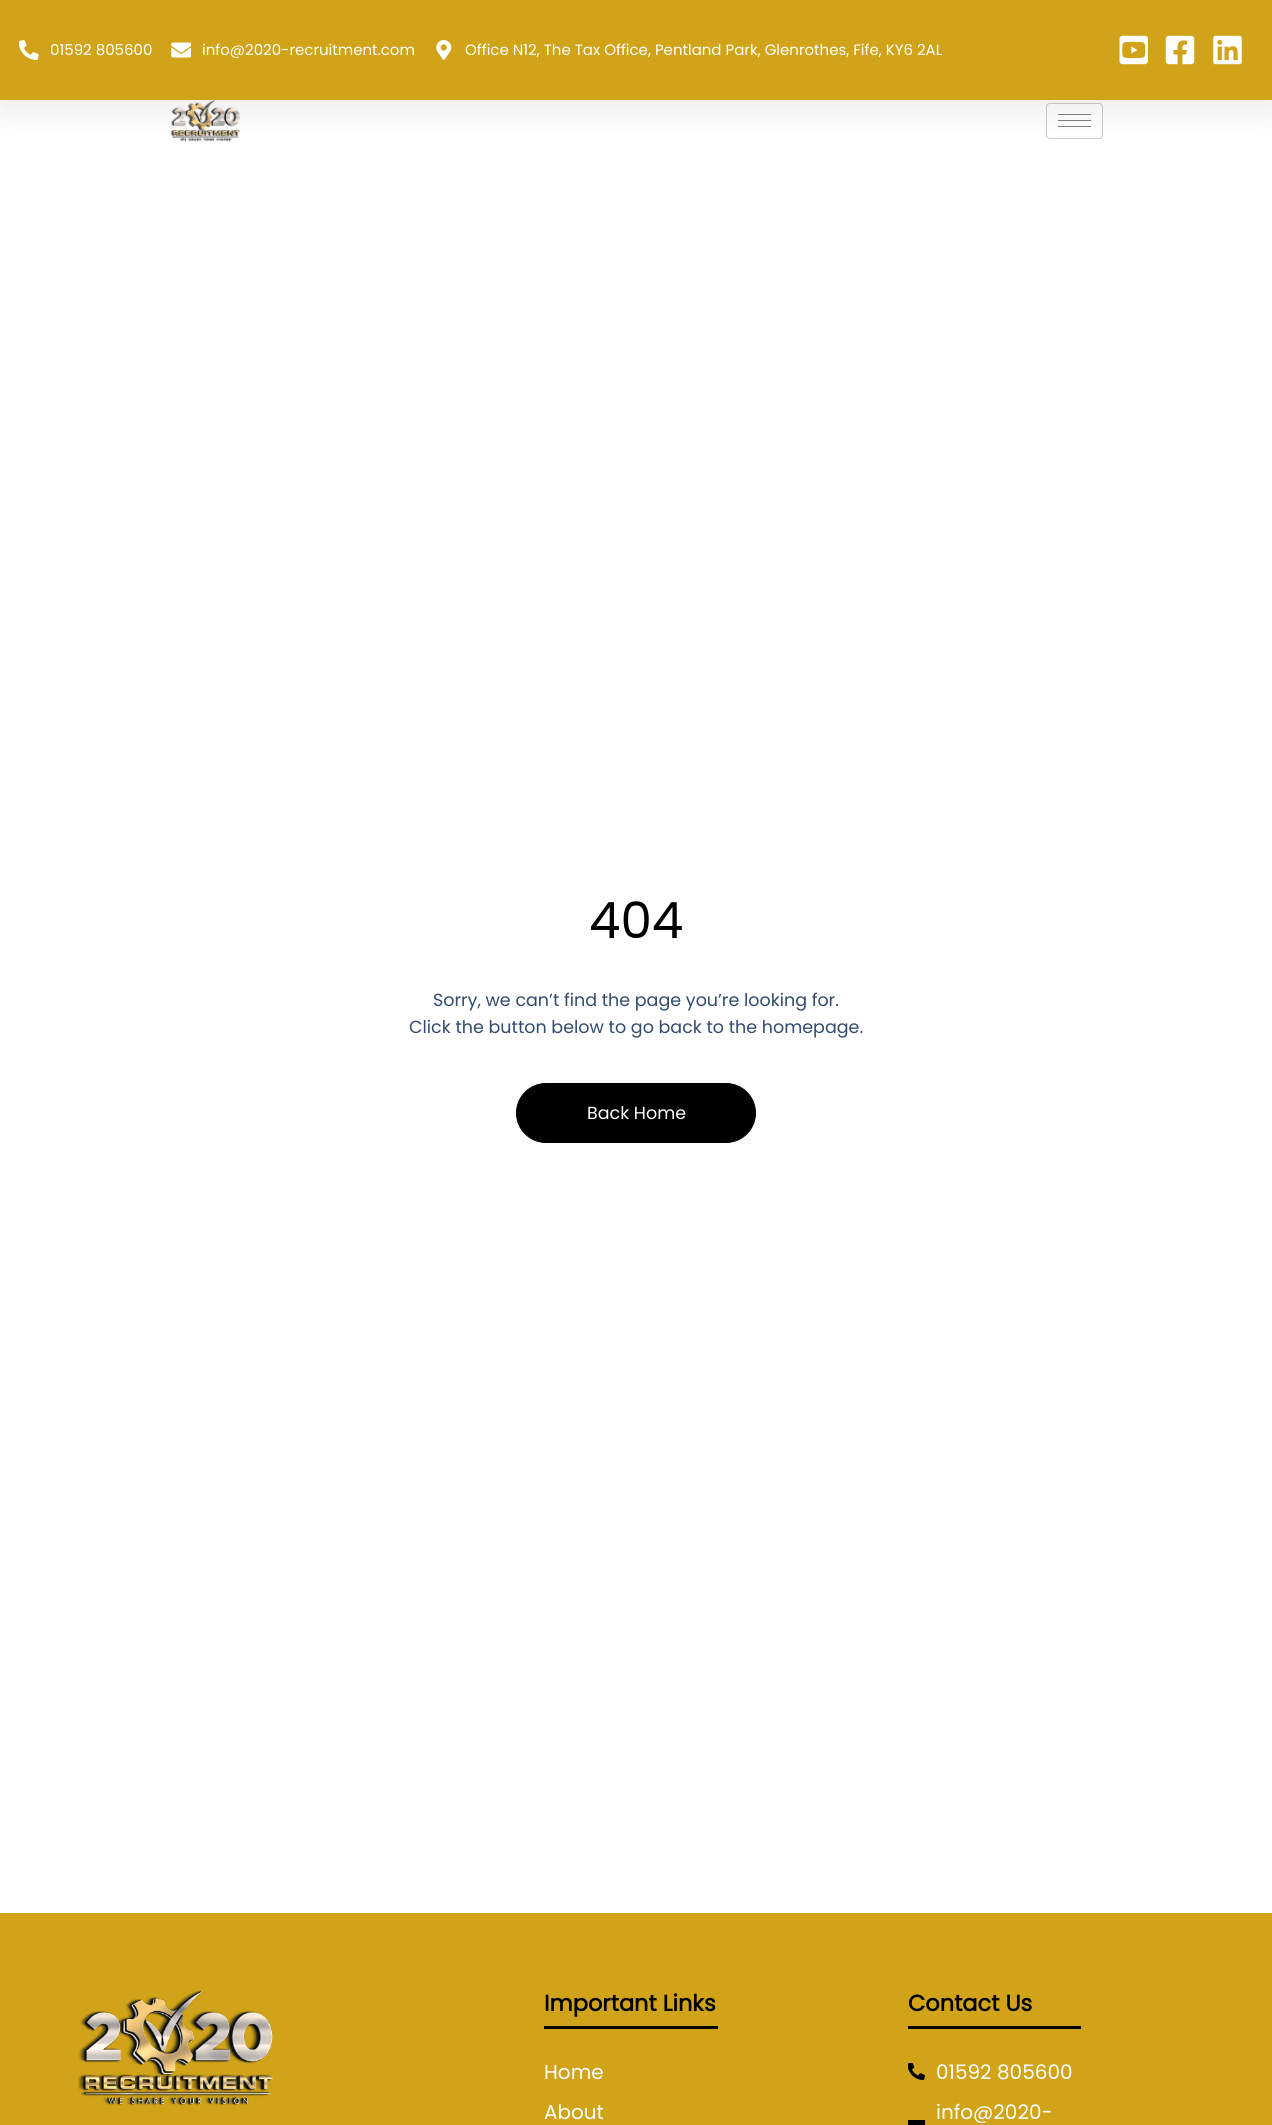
#include <cairo/cairo.h>
#include <math.h>
#include <stddef.h>


static void rounded_rect(cairo_t *cr, double x, double y, double w, double h, double r) {
  cairo_new_sub_path(cr);
  cairo_arc(cr, x + w - r, y + h - r, r, 0, M_PI / 2);
  cairo_arc(cr, x + r, y + h - r, r, M_PI / 2, M_PI);
  cairo_arc(cr, x + r, y + r, r, M_PI, 1.5 * M_PI);
  cairo_arc(cr, x + w - r, y + r, r, 1.5 * M_PI, 2 * M_PI);
  cairo_close_path(cr);
}

static void draw_shadow(cairo_t *cr, double x, double y, double w, double h, double r, double blur, double alpha) {
  cairo_push_group_with_content(cr, CAIRO_CONTENT_ALPHA);
  cairo_set_operator(cr, CAIRO_OPERATOR_SOURCE);
  for (int i = 15; i >= -15 && fmin(w, h) + blur * i / 3 > 0; i -= 2) {
    double e = blur * i / 6;
    cairo_set_source_rgba(cr, 0, 0, 0, alpha * erfc((i - 1) / 8.5) / 2);
    rounded_rect(cr, x - e, y - e, w + 2 * e, h + 2 * e, fmax(0, fmin(r + e + blur * .6, fmin(w, h) / 2 + e)));
    cairo_fill(cr);
  }
  cairo_pattern_t *soft = cairo_pop_group(cr);
  cairo_mask(cr, soft);
  cairo_pattern_destroy(soft);
}

static void draw_image(cairo_t *cr, const char *path, double x, double y, double w, double h) {
  cairo_surface_t *image = cairo_image_surface_create_from_png(path);
  cairo_save(cr);
  cairo_set_source_surface(cr, image, x, y);
  cairo_rectangle(cr, x, y, w, h);
  cairo_fill(cr);
  cairo_restore(cr);
  cairo_surface_destroy(image);
}

static void draw(cairo_t *cr) {
  cairo_set_source_rgb(cr, 1, 1, 1);
  cairo_paint(cr);
  cairo_set_source_rgb(cr, 0, 0, 0);
  draw_shadow(cr, 0, 6, 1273, 100, 0, 19, 0.1);
  cairo_set_source_rgb(cr, 208 / 255.0, 163 / 255.0, 25 / 255.0);
  cairo_rectangle(cr, 0, 0, 1272, 100);
  cairo_fill(cr);
  draw_image(cr, "images/1.png", 19, 40, 20, 20);
  draw_image(cr, "images/2.png", 171, 42, 20, 16);
  draw_image(cr, "images/3.png", 436, 40, 16, 20);
  draw_image(cr, "images/4.png", 1119, 35, 29, 30);
  draw_image(cr, "images/5.png", 1165, 35, 30, 30);
  draw_image(cr, "images/6.png", 1213, 35, 29, 30);
  draw_image(cr, "images/7.png", 170, 100, 70, 42);
  rounded_rect(cr, 1046.5, 103.5, 56, 35, 3.5);
  cairo_set_source_rgba(cr, 0, 0, 0, 0.2);
  cairo_set_line_width(cr, 1);
  cairo_stroke(cr);
  cairo_set_source_rgb(cr, 123 / 255.0, 123 / 255.0, 123 / 255.0);
  cairo_rectangle(cr, 1058, 114, 33, 1);
  cairo_fill(cr);
  cairo_set_source_rgb(cr, 125 / 255.0, 125 / 255.0, 125 / 255.0);
  cairo_rectangle(cr, 1058, 120, 33, 1);
  cairo_fill(cr);
  cairo_set_source_rgb(cr, 126 / 255.0, 126 / 255.0, 126 / 255.0);
  cairo_rectangle(cr, 1058, 126, 33, 1);
  cairo_fill(cr);
  cairo_set_source_rgb(cr, 0, 0, 0);
  rounded_rect(cr, 516.5, 1083.5, 239, 59, 29.5);
  cairo_fill_preserve(cr);
  cairo_stroke(cr);
  cairo_set_source_rgb(cr, 208 / 255.0, 163 / 255.0, 25 / 255.0);
  cairo_rectangle(cr, 0, 1913, 1272, 212);
  cairo_fill(cr);
  draw_image(cr, "images/8.png", 78, 1990, 195, 116);
  cairo_set_source_rgb(cr, 0, 0, 0);
  cairo_rectangle(cr, 544, 2026, 174, 3);
  cairo_fill(cr);
  cairo_rectangle(cr, 908, 2026, 173, 3);
  cairo_fill(cr);
  draw_image(cr, "images/9.png", 908, 2063, 17, 17);
  cairo_rectangle(cr, 908, 2120, 17, 5);
  cairo_fill(cr);
  cairo_select_font_face(cr, "Poppins", CAIRO_FONT_SLANT_NORMAL, CAIRO_FONT_WEIGHT_NORMAL);
  cairo_set_font_size(cr, 15);
  cairo_set_source_rgb(cr, 1, 1, 1);
  cairo_move_to(cr, 50, 55);
  cairo_show_text(cr, "01592 805600");
  cairo_move_to(cr, 202, 55);
  cairo_show_text(cr, "info@2020-recruitment.com");
  cairo_move_to(cr, 465, 55);
  cairo_show_text(cr, "Office N12, The Tax Office, Pentland Park, Glenrothes, Fife, KY6 2AL");
  cairo_set_font_size(cr, 50);
  cairo_set_source_rgb(cr, 0, 0, 0);
  cairo_move_to(cr, 589, 938);
  cairo_show_text(cr, "404");
  cairo_set_font_size(cr, 17.5);
  cairo_set_source_rgb(cr, 50 / 255.0, 74 / 255.0, 109 / 255.0);
  cairo_move_to(cr, 433, 1006);
  cairo_show_text(cr, "Sorry, we can’t find the page you’re looking for.");
  cairo_move_to(cr, 409, 1033);
  cairo_show_text(cr, "Click the button below to go back to the homepage.");
  cairo_set_source_rgb(cr, 1, 1, 1);
  cairo_move_to(cr, 587, 1119);
  cairo_show_text(cr, "Back Home");
  cairo_select_font_face(cr, "Poppins", CAIRO_FONT_SLANT_NORMAL, CAIRO_FONT_WEIGHT_BOLD);
  cairo_set_font_size(cr, 22.5);
  cairo_set_source_rgb(cr, 0, 0, 0);
  cairo_move_to(cr, 544, 2011);
  cairo_show_text(cr, "Important Links");
  cairo_select_font_face(cr, "Poppins", CAIRO_FONT_SLANT_NORMAL, CAIRO_FONT_WEIGHT_NORMAL);
  cairo_set_font_size(cr, 20);
  cairo_set_source_rgb(cr, 1, 1, 1);
  cairo_move_to(cr, 544, 2079);
  cairo_show_text(cr, "Home");
  cairo_move_to(cr, 544, 2119);
  cairo_show_text(cr, "About");
  cairo_select_font_face(cr, "Poppins", CAIRO_FONT_SLANT_NORMAL, CAIRO_FONT_WEIGHT_BOLD);
  cairo_set_font_size(cr, 22.5);
  cairo_set_source_rgb(cr, 0, 0, 0);
  cairo_move_to(cr, 908, 2011);
  cairo_show_text(cr, "Contact Us");
  cairo_select_font_face(cr, "Poppins", CAIRO_FONT_SLANT_NORMAL, CAIRO_FONT_WEIGHT_NORMAL);
  cairo_set_font_size(cr, 20);
  cairo_set_source_rgb(cr, 1, 1, 1);
  cairo_move_to(cr, 936, 2079);
  cairo_show_text(cr, "01592 805600");
  cairo_move_to(cr, 936, 2119);
  cairo_show_text(cr, "info@2020-");
}

int main(void) {
  cairo_surface_t *surface = cairo_image_surface_create(CAIRO_FORMAT_RGB24, 1272, 2125);
  cairo_t *cr = cairo_create(surface);
  cairo_font_options_t *options = cairo_font_options_create();
  cairo_font_options_set_hint_metrics(options, CAIRO_HINT_METRICS_OFF);
  cairo_font_options_set_hint_style(options, CAIRO_HINT_STYLE_NONE);
  cairo_set_font_options(cr, options);
  cairo_set_miter_limit(cr, 4);
  draw(cr);
  cairo_surface_write_to_png(surface, "out.png");
  cairo_font_options_destroy(options);
  cairo_destroy(cr);
  cairo_surface_destroy(surface);
  return 0;
}
